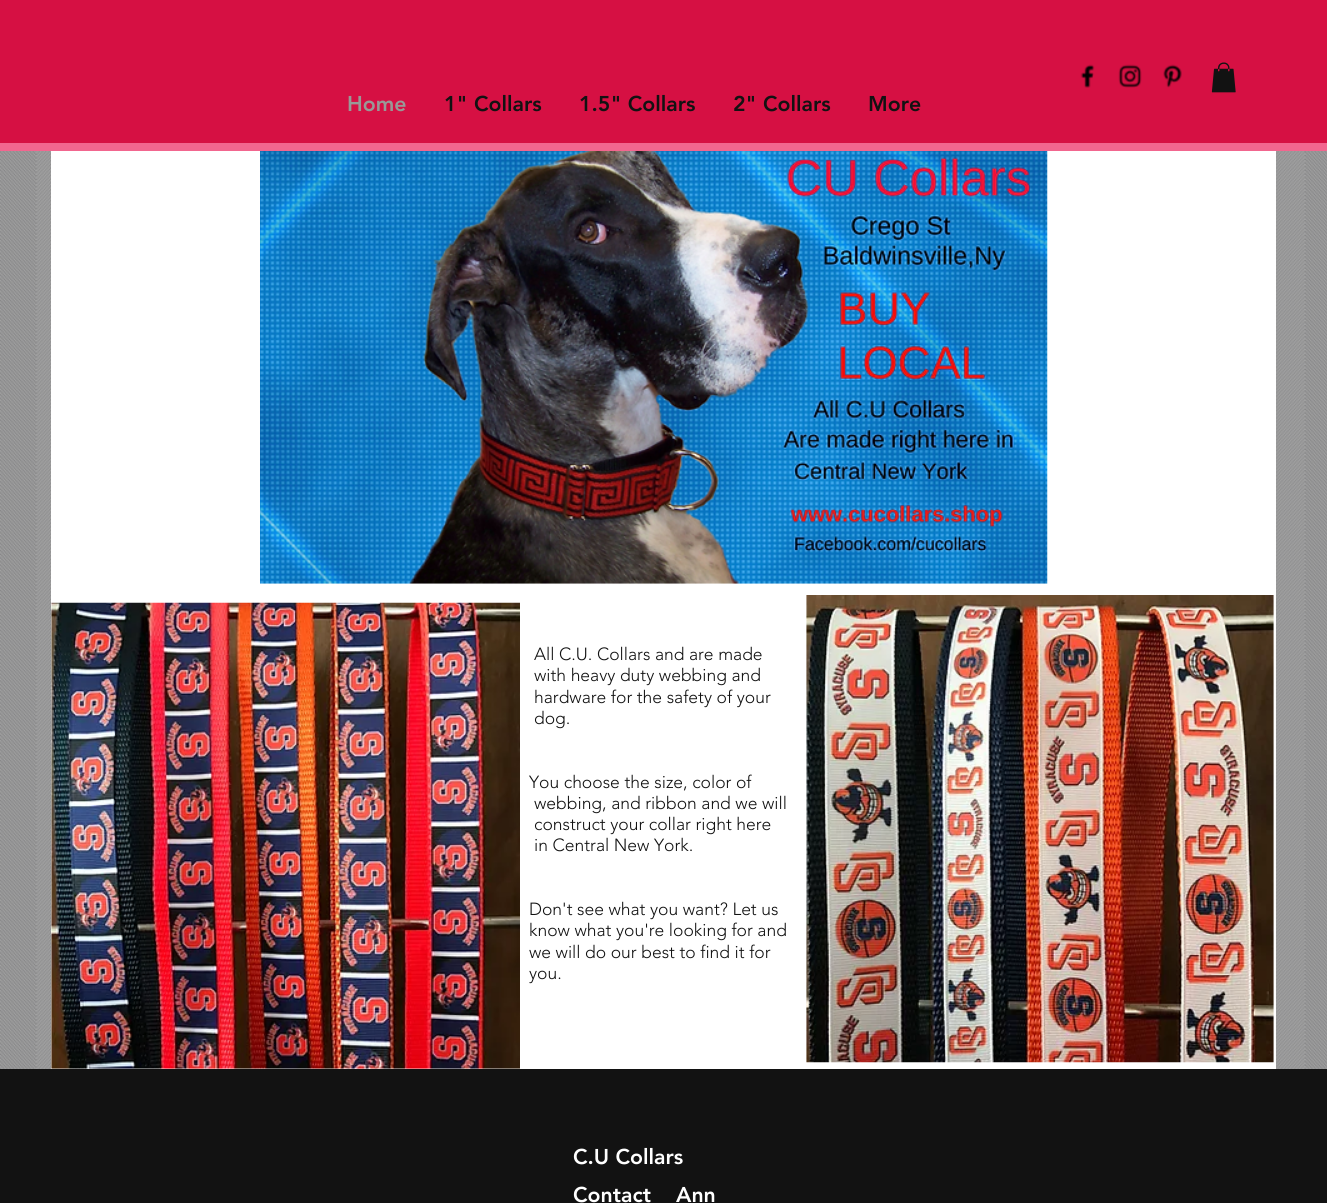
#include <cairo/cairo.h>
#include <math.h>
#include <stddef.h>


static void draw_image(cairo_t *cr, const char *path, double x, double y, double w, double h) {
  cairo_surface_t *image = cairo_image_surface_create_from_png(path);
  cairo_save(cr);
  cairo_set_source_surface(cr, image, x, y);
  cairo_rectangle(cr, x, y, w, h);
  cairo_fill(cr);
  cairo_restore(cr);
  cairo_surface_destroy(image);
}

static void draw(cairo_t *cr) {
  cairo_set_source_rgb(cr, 167 / 255.0, 167 / 255.0, 167 / 255.0);
  cairo_paint(cr);
  cairo_set_source_rgb(cr, 214 / 255.0, 16 / 255.0, 67 / 255.0);
  cairo_rectangle(cr, 0, 0, 1327, 143);
  cairo_fill(cr);
  draw_image(cr, "images/1.png", 1080, 64, 15, 24);
  draw_image(cr, "images/2.png", 1118, 64, 24, 24);
  draw_image(cr, "images/3.png", 1163, 64, 19, 24);
  draw_image(cr, "images/4.png", 1211, 62, 25, 31);
  cairo_set_source_rgb(cr, 242 / 255.0, 102 / 255.0, 143 / 255.0);
  cairo_rectangle(cr, 0, 143, 1327, 8);
  cairo_fill(cr);
  draw_image(cr, "images/8.png", 0, 151, 1327, 918);
  cairo_set_source_rgb(cr, 1, 1, 1);
  cairo_rectangle(cr, 51, 151, 1225, 918);
  cairo_fill(cr);
  draw_image(cr, "images/5.png", 260, 151, 788, 433);
  draw_image(cr, "images/6.png", 51, 602, 469, 467);
  draw_image(cr, "images/7.png", 806, 595, 468, 468);
  cairo_set_source_rgb(cr, 18 / 255.0, 18 / 255.0, 18 / 255.0);
  cairo_rectangle(cr, 0, 1069, 1327, 134);
  cairo_fill(cr);
  cairo_select_font_face(cr, "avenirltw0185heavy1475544 Black", CAIRO_FONT_SLANT_NORMAL, CAIRO_FONT_WEIGHT_NORMAL);
  cairo_set_font_size(cr, 21.25);
  cairo_set_source_rgb(cr, 153 / 255.0, 153 / 255.0, 151 / 255.0);
  cairo_move_to(cr, 347, 111);
  cairo_show_text(cr, "Home");
  cairo_set_source_rgb(cr, 18 / 255.0, 18 / 255.0, 18 / 255.0);
  cairo_move_to(cr, 444, 111);
  cairo_show_text(cr, "1\" Collars");
  cairo_move_to(cr, 579, 111);
  cairo_show_text(cr, "1.5\" Collars");
  cairo_move_to(cr, 733, 111);
  cairo_show_text(cr, "2\" Collars");
  cairo_move_to(cr, 868, 111);
  cairo_show_text(cr, "More");
  cairo_select_font_face(cr, "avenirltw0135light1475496 Light", CAIRO_FONT_SLANT_NORMAL, CAIRO_FONT_WEIGHT_NORMAL);
  cairo_set_font_size(cr, 17.5);
  cairo_move_to(cr, 534, 660);
  cairo_show_text(cr, "All C.U. Collars and are made");
  cairo_move_to(cr, 534, 681);
  cairo_show_text(cr, "with heavy duty webbing and");
  cairo_move_to(cr, 534, 703);
  cairo_show_text(cr, "hardware for the safety of your");
  cairo_move_to(cr, 534, 724);
  cairo_show_text(cr, "dog.");
  cairo_move_to(cr, 529, 788);
  cairo_show_text(cr, "You choose the size, color of");
  cairo_move_to(cr, 534, 809);
  cairo_show_text(cr, "webbing, and ribbon and we will");
  cairo_move_to(cr, 534, 830);
  cairo_show_text(cr, "construct your collar right here");
  cairo_move_to(cr, 534, 851);
  cairo_show_text(cr, "in Central New York.");
  cairo_move_to(cr, 529, 915);
  cairo_show_text(cr, "Don't see what you want? Let us");
  cairo_move_to(cr, 529, 936);
  cairo_show_text(cr, "know what you're looking for and");
  cairo_move_to(cr, 529, 958);
  cairo_show_text(cr, "we will do our best to find it for");
  cairo_move_to(cr, 529, 979);
  cairo_show_text(cr, "you.");
  cairo_select_font_face(cr, "avenirltw0185heavy1475544 Black", CAIRO_FONT_SLANT_NORMAL, CAIRO_FONT_WEIGHT_NORMAL);
  cairo_set_font_size(cr, 21.25);
  cairo_set_source_rgb(cr, 1, 1, 1);
  cairo_move_to(cr, 573, 1164);
  cairo_show_text(cr, "C.U Collars");
  cairo_move_to(cr, 573, 1202);
  cairo_show_text(cr, "Contact    Ann");
}

int main(void) {
  cairo_surface_t *surface = cairo_image_surface_create(CAIRO_FORMAT_RGB24, 1327, 1203);
  cairo_t *cr = cairo_create(surface);
  cairo_font_options_t *options = cairo_font_options_create();
  cairo_font_options_set_hint_metrics(options, CAIRO_HINT_METRICS_OFF);
  cairo_font_options_set_hint_style(options, CAIRO_HINT_STYLE_NONE);
  cairo_set_font_options(cr, options);
  cairo_set_miter_limit(cr, 4);
  draw(cr);
  cairo_surface_write_to_png(surface, "out.png");
  cairo_font_options_destroy(options);
  cairo_destroy(cr);
  cairo_surface_destroy(surface);
  return 0;
}
